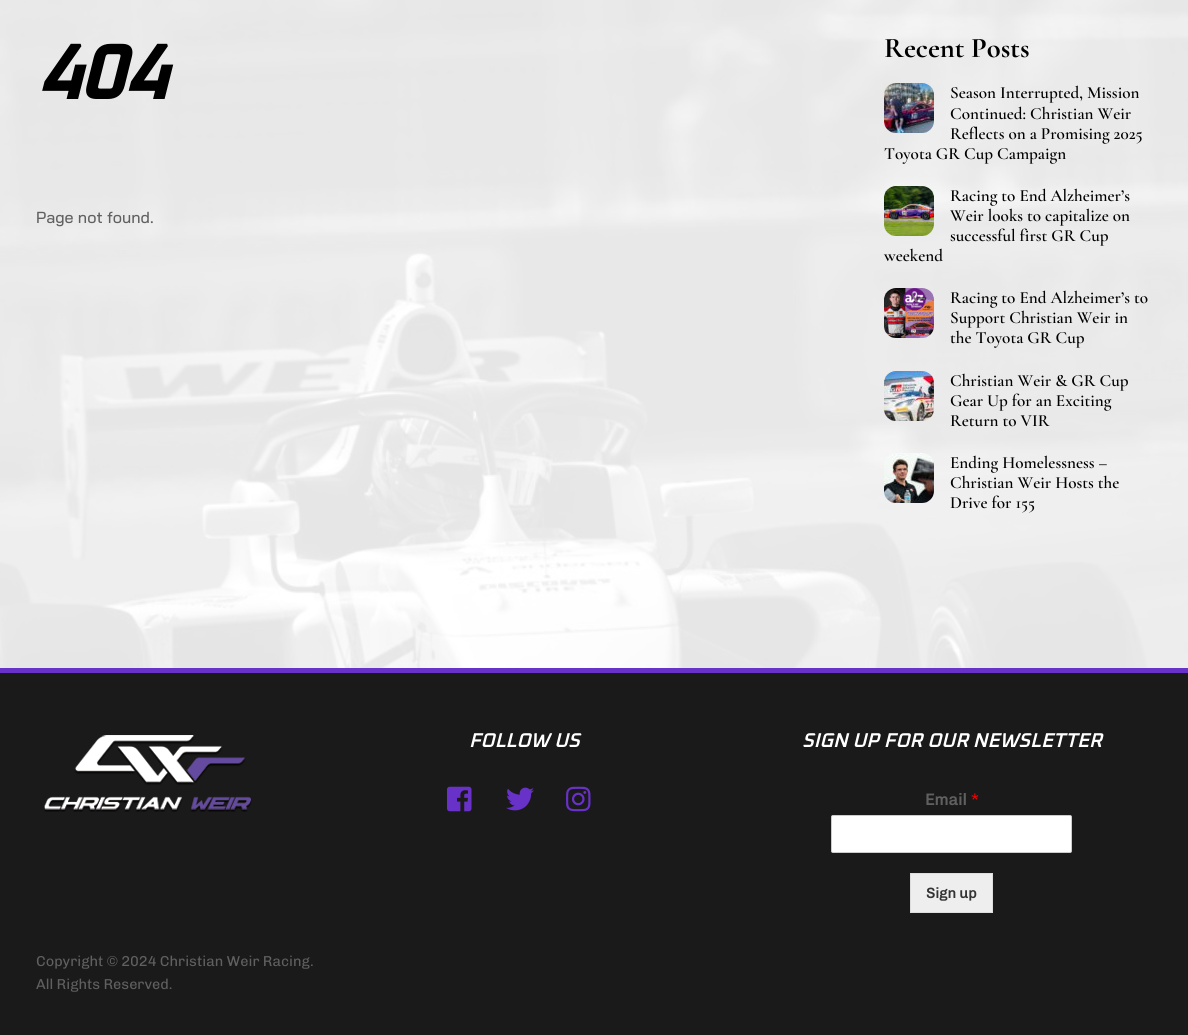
#include <cairo/cairo.h>
#include <math.h>
#include <stddef.h>


static void draw_spaced(cairo_t *cr, double x, double y, const char *s, double letter, double word) {
  cairo_move_to(cr, x, y);
  while (*s) {
    char ch[5] = {0};
    int n = 0;
    do ch[n++] = *s++; while ((*s & 0xC0) == 0x80);
    cairo_show_text(cr, ch);
    cairo_rel_move_to(cr, letter + word * (*ch == ' '), 0);
  }
}

static void rounded_rect(cairo_t *cr, double x, double y, double w, double h, double r) {
  cairo_new_sub_path(cr);
  cairo_arc(cr, x + w - r, y + h - r, r, 0, M_PI / 2);
  cairo_arc(cr, x + r, y + h - r, r, M_PI / 2, M_PI);
  cairo_arc(cr, x + r, y + r, r, M_PI, 1.5 * M_PI);
  cairo_arc(cr, x + w - r, y + r, r, 1.5 * M_PI, 2 * M_PI);
  cairo_close_path(cr);
}

static void draw_image(cairo_t *cr, const char *path, double x, double y, double w, double h) {
  cairo_surface_t *image = cairo_image_surface_create_from_png(path);
  cairo_save(cr);
  cairo_set_source_surface(cr, image, x, y);
  cairo_rectangle(cr, x, y, w, h);
  cairo_fill(cr);
  cairo_restore(cr);
  cairo_surface_destroy(image);
}

static void draw(cairo_t *cr) {
  cairo_set_source_rgb(cr, 1, 1, 1);
  cairo_paint(cr);
  draw_image(cr, "images/1.png", 0, 0, 1188, 668);
  draw_image(cr, "images/2.png", 884, 83, 50, 50);
  draw_image(cr, "images/3.png", 884, 186, 50, 50);
  draw_image(cr, "images/4.png", 884, 288, 50, 50);
  draw_image(cr, "images/5.png", 884, 371, 50, 50);
  draw_image(cr, "images/6.png", 884, 453, 50, 50);
  cairo_set_source_rgb(cr, 26 / 255.0, 26 / 255.0, 26 / 255.0);
  cairo_rectangle(cr, 0, 673, 1188, 362);
  cairo_fill(cr);
  cairo_set_source_rgb(cr, 104 / 255.0, 49 / 255.0, 199 / 255.0);
  cairo_rectangle(cr, 0, 668, 1188, 5);
  cairo_fill(cr);
  draw_image(cr, "images/7.png", 44, 735, 208, 77);
  draw_image(cr, "images/8.png", 447, 786, 25, 26);
  draw_image(cr, "images/9.png", 506, 787, 28, 24);
  draw_image(cr, "images/10.png", 566, 786, 25, 26);
  cairo_set_source_rgb(cr, 1, 1, 1);
  rounded_rect(cr, 831.5, 815.5, 240, 37, 1.5);
  cairo_fill_preserve(cr);
  cairo_set_source_rgb(cr, 204 / 255.0, 204 / 255.0, 204 / 255.0);
  cairo_set_line_width(cr, 1);
  cairo_stroke(cr);
  cairo_set_source_rgb(cr, 238 / 255.0, 238 / 255.0, 238 / 255.0);
  cairo_rectangle(cr, 910.5, 873.5, 82, 39);
  cairo_fill_preserve(cr);
  cairo_set_source_rgb(cr, 221 / 255.0, 221 / 255.0, 221 / 255.0);
  cairo_stroke(cr);
  cairo_select_font_face(cr, "Oxanium", CAIRO_FONT_SLANT_ITALIC, CAIRO_FONT_WEIGHT_BOLD);
  cairo_set_font_size(cr, 80);
  cairo_set_source_rgb(cr, 0, 0, 0);
  draw_spaced(cr, 36, 99, "404", -3, 0);
  cairo_select_font_face(cr, "Bai Jamjuree Medium", CAIRO_FONT_SLANT_NORMAL, CAIRO_FONT_WEIGHT_NORMAL);
  cairo_set_font_size(cr, 16);
  cairo_set_source_rgb(cr, 96 / 255.0, 96 / 255.0, 96 / 255.0);
  cairo_move_to(cr, 36, 223);
  cairo_show_text(cr, "Page not found.");
  cairo_select_font_face(cr, "Cormorant Garamond", CAIRO_FONT_SLANT_NORMAL, CAIRO_FONT_WEIGHT_BOLD);
  cairo_set_font_size(cr, 28.5);
  cairo_set_source_rgb(cr, 0, 0, 0);
  cairo_move_to(cr, 884, 57);
  cairo_show_text(cr, "Recent Posts");
  cairo_select_font_face(cr, "Cormorant Garamond SemiBold", CAIRO_FONT_SLANT_NORMAL, CAIRO_FONT_WEIGHT_NORMAL);
  cairo_set_font_size(cr, 17.1);
  cairo_move_to(cr, 950, 98);
  cairo_show_text(cr, "Season Interrupted, Mission");
  cairo_move_to(cr, 950, 119);
  cairo_show_text(cr, "Continued: Christian Weir");
  cairo_move_to(cr, 950, 139);
  cairo_show_text(cr, "Reflects on a Promising 2025");
  cairo_move_to(cr, 884, 159);
  cairo_show_text(cr, "Toyota GR Cup Campaign");
  cairo_move_to(cr, 950, 201);
  cairo_show_text(cr, "Racing to End Alzheimer’s");
  cairo_move_to(cr, 950, 221);
  cairo_show_text(cr, "Weir looks to capitalize on");
  cairo_move_to(cr, 950, 241);
  cairo_show_text(cr, "successful first GR Cup");
  cairo_move_to(cr, 884, 261);
  cairo_show_text(cr, "weekend");
  cairo_move_to(cr, 950, 303);
  cairo_show_text(cr, "Racing to End Alzheimer’s to");
  cairo_move_to(cr, 950, 323);
  cairo_show_text(cr, "Support Christian Weir in");
  cairo_move_to(cr, 950, 343);
  cairo_show_text(cr, "the Toyota GR Cup");
  cairo_move_to(cr, 950, 386);
  cairo_show_text(cr, "Christian Weir & GR Cup");
  cairo_move_to(cr, 950, 406);
  cairo_show_text(cr, "Gear Up for an Exciting");
  cairo_move_to(cr, 950, 426);
  cairo_show_text(cr, "Return to VIR");
  cairo_move_to(cr, 950, 468);
  cairo_show_text(cr, "Ending Homelessness –");
  cairo_move_to(cr, 950, 488);
  cairo_show_text(cr, "Christian Weir Hosts the");
  cairo_move_to(cr, 950, 508);
  cairo_show_text(cr, "Drive for 155");
  cairo_select_font_face(cr, "Oxanium SemiBold", CAIRO_FONT_SLANT_ITALIC, CAIRO_FONT_WEIGHT_NORMAL);
  cairo_set_font_size(cr, 20);
  cairo_set_source_rgb(cr, 1, 1, 1);
  cairo_move_to(cr, 469, 747);
  cairo_show_text(cr, "FOLLOW US");
  cairo_move_to(cr, 802, 747);
  cairo_show_text(cr, "SIGN UP FOR OUR NEWSLETTER");
  cairo_select_font_face(cr, "Chivo", CAIRO_FONT_SLANT_NORMAL, CAIRO_FONT_WEIGHT_BOLD);
  cairo_set_font_size(cr, 16);
  cairo_set_source_rgb(cr, 96 / 255.0, 96 / 255.0, 96 / 255.0);
  cairo_move_to(cr, 925, 805);
  cairo_show_text(cr, "Email");
  cairo_select_font_face(cr, "Chivo Medium", CAIRO_FONT_SLANT_NORMAL, CAIRO_FONT_WEIGHT_NORMAL);
  cairo_set_source_rgb(cr, 1, 0, 0);
  cairo_move_to(cr, 971, 805);
  cairo_show_text(cr, "*");
  cairo_select_font_face(cr, "Chivo", CAIRO_FONT_SLANT_NORMAL, CAIRO_FONT_WEIGHT_BOLD);
  cairo_set_font_size(cr, 14.4);
  cairo_set_source_rgb(cr, 51 / 255.0, 51 / 255.0, 51 / 255.0);
  cairo_move_to(cr, 926, 898);
  cairo_show_text(cr, "Sign up");
  cairo_select_font_face(cr, "Chivo Medium", CAIRO_FONT_SLANT_NORMAL, CAIRO_FONT_WEIGHT_NORMAL);
  cairo_set_source_rgb(cr, 96 / 255.0, 96 / 255.0, 96 / 255.0);
  cairo_move_to(cr, 36, 966);
  cairo_show_text(cr, "Copyright © 2024 Christian Weir Racing.");
  cairo_move_to(cr, 36, 989);
  cairo_show_text(cr, "All Rights Reserved.");
}

int main(void) {
  cairo_surface_t *surface = cairo_image_surface_create(CAIRO_FORMAT_RGB24, 1188, 1035);
  cairo_t *cr = cairo_create(surface);
  cairo_font_options_t *options = cairo_font_options_create();
  cairo_font_options_set_hint_metrics(options, CAIRO_HINT_METRICS_OFF);
  cairo_font_options_set_hint_style(options, CAIRO_HINT_STYLE_NONE);
  cairo_set_font_options(cr, options);
  cairo_set_miter_limit(cr, 4);
  draw(cr);
  cairo_surface_write_to_png(surface, "out.png");
  cairo_font_options_destroy(options);
  cairo_destroy(cr);
  cairo_surface_destroy(surface);
  return 0;
}
